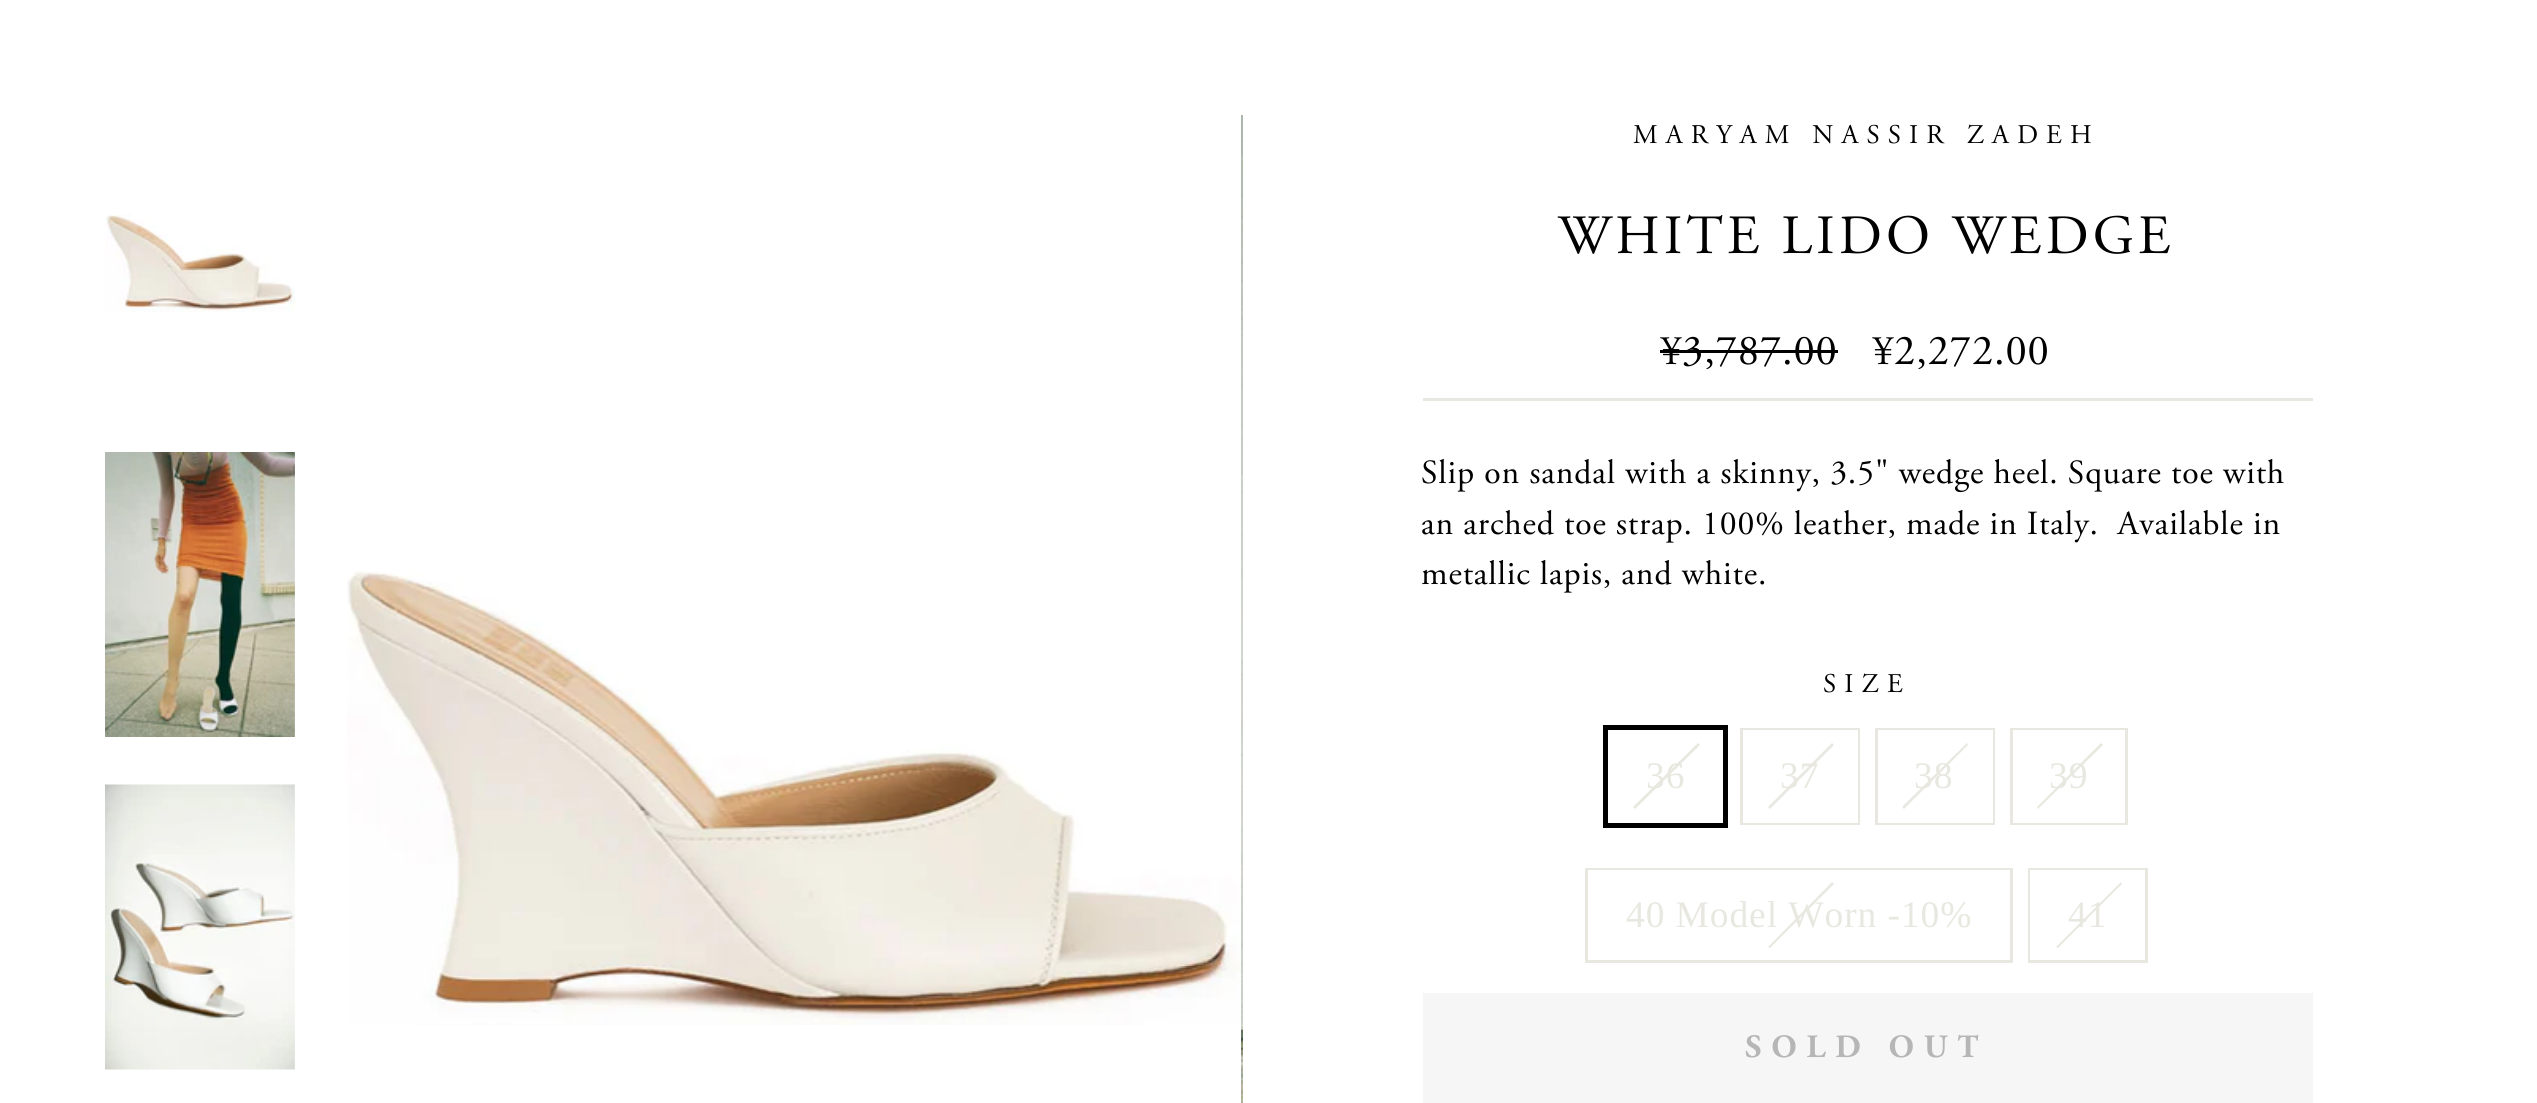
#include <cairo/cairo.h>
#include <math.h>
#include <stddef.h>


static void draw_spaced(cairo_t *cr, double x, double y, const char *s, double letter, double word) {
  cairo_move_to(cr, x, y);
  while (*s) {
    char ch[5] = {0};
    int n = 0;
    do ch[n++] = *s++; while ((*s & 0xC0) == 0x80);
    cairo_show_text(cr, ch);
    cairo_rel_move_to(cr, letter + word * (*ch == ' '), 0);
  }
}

static void draw_image(cairo_t *cr, const char *path, double x, double y, double w, double h) {
  cairo_surface_t *image = cairo_image_surface_create_from_png(path);
  cairo_save(cr);
  cairo_set_source_surface(cr, image, x, y);
  cairo_rectangle(cr, x, y, w, h);
  cairo_fill(cr);
  cairo_restore(cr);
  cairo_surface_destroy(image);
}

static void draw(cairo_t *cr) {
  cairo_set_source_rgb(cr, 1, 1, 1);
  cairo_paint(cr);
  draw_image(cr, "images/1.png", 105, 214, 190, 98);
  draw_image(cr, "images/2.png", 105, 452, 190, 285);
  draw_image(cr, "images/3.png", 105, 784, 190, 286);
  draw_image(cr, "images/4.png", 347, 571, 894, 454);
  draw_image(cr, "images/5.png", 1241, 115, 2, 988);
  cairo_set_source_rgb(cr, 0, 0, 0);
  cairo_rectangle(cr, 1660, 350, 178, 3);
  cairo_fill(cr);
  cairo_set_source_rgb(cr, 232 / 255.0, 232 / 255.0, 225 / 255.0);
  cairo_rectangle(cr, 1423, 398, 890, 3);
  cairo_fill(cr);
  cairo_rectangle(cr, 1605.5, 727.5, 120, 98);
  cairo_set_source_rgb(cr, 0, 0, 0);
  cairo_set_line_width(cr, 5);
  cairo_stroke(cr);
  cairo_set_source_rgb(cr, 232 / 255.0, 232 / 255.0, 225 / 255.0);
  cairo_new_path(cr);
  cairo_move_to(cr, 1698, 743);
  cairo_line_to(cr, 1700, 745);
  cairo_line_to(cr, 1635, 809);
  cairo_line_to(cr, 1633, 807);
  cairo_close_path(cr);
  cairo_fill(cr);
  cairo_rectangle(cr, 1741.5, 729.5, 117, 94);
  cairo_set_line_width(cr, 3);
  cairo_stroke(cr);
  cairo_set_source_rgb(cr, 1, 1, 1);
  cairo_rectangle(cr, 1743, 730, 115, 93);
  cairo_fill(cr);
  cairo_set_source_rgb(cr, 232 / 255.0, 232 / 255.0, 225 / 255.0);
  cairo_new_path(cr);
  cairo_move_to(cr, 1832, 743);
  cairo_line_to(cr, 1834, 745);
  cairo_line_to(cr, 1770, 809);
  cairo_line_to(cr, 1768, 807);
  cairo_close_path(cr);
  cairo_fill(cr);
  cairo_rectangle(cr, 1876.5, 729.5, 117, 94);
  cairo_stroke(cr);
  cairo_set_source_rgb(cr, 1, 1, 1);
  cairo_rectangle(cr, 1878, 730, 115, 93);
  cairo_fill(cr);
  cairo_set_source_rgb(cr, 232 / 255.0, 232 / 255.0, 225 / 255.0);
  cairo_new_path(cr);
  cairo_move_to(cr, 1967, 743);
  cairo_line_to(cr, 1968, 745);
  cairo_line_to(cr, 1904, 809);
  cairo_line_to(cr, 1902, 807);
  cairo_close_path(cr);
  cairo_fill(cr);
  cairo_rectangle(cr, 2011.5, 729.5, 115, 94);
  cairo_stroke(cr);
  cairo_set_source_rgb(cr, 1, 1, 1);
  cairo_rectangle(cr, 2013, 730, 112, 93);
  cairo_fill(cr);
  cairo_set_source_rgb(cr, 232 / 255.0, 232 / 255.0, 225 / 255.0);
  cairo_new_path(cr);
  cairo_move_to(cr, 2101, 743);
  cairo_line_to(cr, 2103, 745);
  cairo_line_to(cr, 2038, 809);
  cairo_line_to(cr, 2037, 807);
  cairo_close_path(cr);
  cairo_fill(cr);
  cairo_rectangle(cr, 1586.5, 869.5, 425, 92);
  cairo_stroke(cr);
  cairo_set_source_rgb(cr, 1, 1, 1);
  cairo_rectangle(cr, 1588, 870, 422, 1);
  cairo_fill(cr);
  cairo_set_source_rgb(cr, 232 / 255.0, 232 / 255.0, 225 / 255.0);
  cairo_new_path(cr);
  cairo_move_to(cr, 1832, 882);
  cairo_line_to(cr, 1834, 884);
  cairo_line_to(cr, 1770, 948);
  cairo_line_to(cr, 1768, 947);
  cairo_close_path(cr);
  cairo_fill(cr);
  cairo_rectangle(cr, 2029.5, 869.5, 117, 92);
  cairo_stroke(cr);
  cairo_set_source_rgb(cr, 1, 1, 1);
  cairo_rectangle(cr, 2030, 870, 115, 90);
  cairo_fill(cr);
  cairo_set_source_rgb(cr, 232 / 255.0, 232 / 255.0, 225 / 255.0);
  cairo_new_path(cr);
  cairo_move_to(cr, 2121, 882);
  cairo_line_to(cr, 2122, 884);
  cairo_line_to(cr, 2058, 948);
  cairo_line_to(cr, 2056, 947);
  cairo_close_path(cr);
  cairo_fill(cr);
  cairo_set_source_rgb(cr, 246 / 255.0, 246 / 255.0, 246 / 255.0);
  cairo_rectangle(cr, 1423, 993, 890, 110);
  cairo_fill(cr);
  cairo_select_font_face(cr, "Adobe Garamond", CAIRO_FONT_SLANT_NORMAL, CAIRO_FONT_WEIGHT_NORMAL);
  cairo_set_font_size(cr, 27);
  cairo_set_source_rgb(cr, 0, 0, 0);
  draw_spaced(cr, 1633, 143, "MARYAM NASSIR ZADEH", 8.1, 0);
  cairo_set_font_size(cr, 55.25);
  draw_spaced(cr, 1558, 253, "WHITE LIDO WEDGE", 4.1, 0);
  cairo_set_font_size(cr, 42.5);
  draw_spaced(cr, 1660, 364, "¥3,787.00", 0.85, 0);
  draw_spaced(cr, 1872, 364, "¥2,272.00", 0.85, 0);
  cairo_set_font_size(cr, 33.75);
  draw_spaced(cr, 1421, 483, "Slip on sandal with a skinny, 3.5\" wedge heel. Square toe with", 0.85, 0);
  draw_spaced(cr, 1421, 534, "an arched toe strap. 100% leather, made in Italy.  Available in", 0.85, 0);
  draw_spaced(cr, 1421, 584, "metallic lapis, and white.", 0.85, 0);
  cairo_set_font_size(cr, 27);
  draw_spaced(cr, 1823, 692, "SIZE", 8.1, 0);
  cairo_select_font_face(cr, "Liberation Serif", CAIRO_FONT_SLANT_NORMAL, CAIRO_FONT_WEIGHT_NORMAL);
  cairo_set_font_size(cr, 37.5);
  cairo_set_source_rgb(cr, 232 / 255.0, 232 / 255.0, 225 / 255.0);
  draw_spaced(cr, 1646, 788, "36", 0.9, 0);
  draw_spaced(cr, 1780, 788, "37", 0.9, 0);
  draw_spaced(cr, 1914, 788, "38", 0.9, 0);
  draw_spaced(cr, 2049, 788, "39", 0.9, 0);
  draw_spaced(cr, 1626, 927, "40 Model Worn -10%", 0.9, 0);
  draw_spaced(cr, 2068, 927, "41", 0.9, 0);
  cairo_select_font_face(cr, "Adobe Garamond", CAIRO_FONT_SLANT_NORMAL, CAIRO_FONT_WEIGHT_BOLD);
  cairo_set_font_size(cr, 32.5);
  cairo_set_source_rgb(cr, 182 / 255.0, 182 / 255.0, 182 / 255.0);
  draw_spaced(cr, 1745, 1057, "SOLD OUT", 9.75, 0);
}

int main(void) {
  cairo_surface_t *surface = cairo_image_surface_create(CAIRO_FORMAT_RGB24, 2537, 1103);
  cairo_t *cr = cairo_create(surface);
  cairo_font_options_t *options = cairo_font_options_create();
  cairo_font_options_set_hint_metrics(options, CAIRO_HINT_METRICS_OFF);
  cairo_font_options_set_hint_style(options, CAIRO_HINT_STYLE_NONE);
  cairo_set_font_options(cr, options);
  cairo_set_miter_limit(cr, 4);
  draw(cr);
  cairo_surface_write_to_png(surface, "out.png");
  cairo_font_options_destroy(options);
  cairo_destroy(cr);
  cairo_surface_destroy(surface);
  return 0;
}
